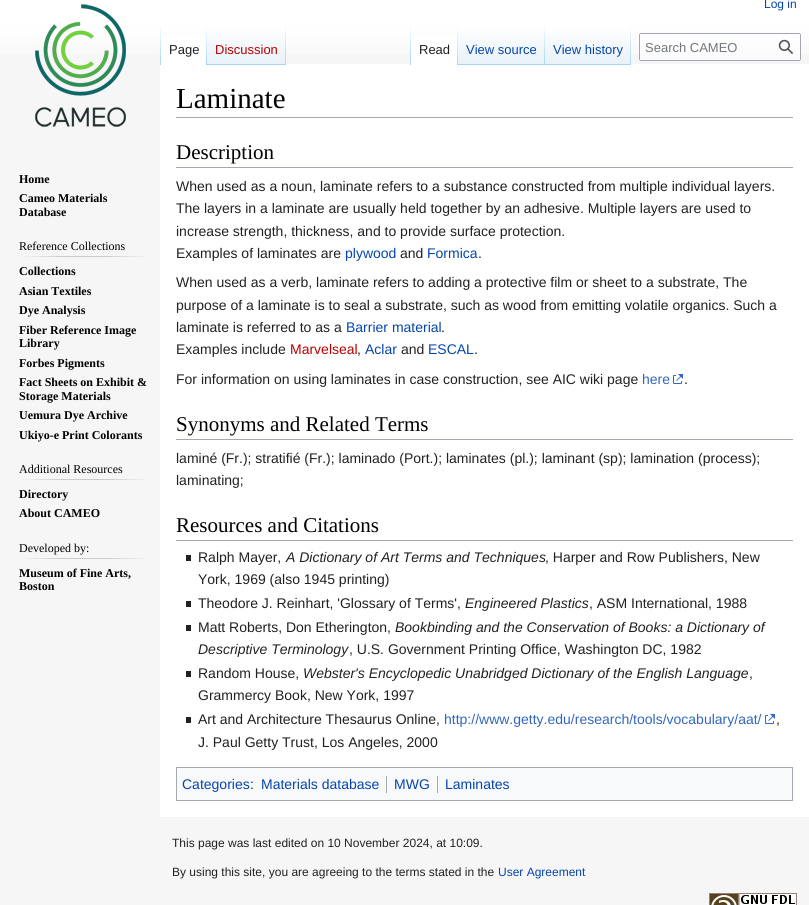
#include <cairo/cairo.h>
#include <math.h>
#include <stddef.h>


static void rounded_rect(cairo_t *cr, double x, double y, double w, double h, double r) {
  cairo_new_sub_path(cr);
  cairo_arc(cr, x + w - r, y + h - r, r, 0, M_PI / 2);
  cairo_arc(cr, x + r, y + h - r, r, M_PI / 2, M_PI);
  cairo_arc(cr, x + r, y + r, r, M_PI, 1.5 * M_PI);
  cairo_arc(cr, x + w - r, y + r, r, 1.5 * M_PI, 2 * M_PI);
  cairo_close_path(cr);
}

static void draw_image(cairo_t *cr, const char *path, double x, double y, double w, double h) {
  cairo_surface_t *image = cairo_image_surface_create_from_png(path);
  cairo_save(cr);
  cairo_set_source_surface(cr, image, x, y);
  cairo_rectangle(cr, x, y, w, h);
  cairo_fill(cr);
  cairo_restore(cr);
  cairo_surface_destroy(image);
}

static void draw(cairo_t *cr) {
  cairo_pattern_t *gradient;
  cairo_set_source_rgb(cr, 246 / 255.0, 246 / 255.0, 246 / 255.0);
  cairo_paint(cr);
  gradient = cairo_pattern_create_linear(405, -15, 405, 65);
  cairo_pattern_add_color_stop_rgba(gradient, 0.5, 1, 1, 1, 1);
  cairo_pattern_add_color_stop_rgba(gradient, 1, 246 / 255.0, 246 / 255.0, 246 / 255.0, 1);
  cairo_set_source(cr, gradient);
  cairo_pattern_destroy(gradient);
  cairo_rectangle(cr, 0, 0, 809, 54);
  cairo_fill(cr);
  cairo_set_source_rgb(cr, 1, 1, 1);
  cairo_rectangle(cr, 160, 64, 649, 753);
  cairo_fill(cr);
  gradient = cairo_pattern_create_linear(161, 25, 161, 65);
  cairo_pattern_add_color_stop_rgba(gradient, 0, 167 / 255.0, 215 / 255.0, 249 / 255.0, 0);
  cairo_pattern_add_color_stop_rgba(gradient, 1, 167 / 255.0, 215 / 255.0, 249 / 255.0, 1);
  cairo_set_source(cr, gradient);
  cairo_pattern_destroy(gradient);
  cairo_rectangle(cr, 160, 25, 1, 40);
  cairo_fill(cr);
  cairo_set_source_rgb(cr, 1, 1, 1);
  cairo_rectangle(cr, 161, 36, 45, 28);
  cairo_fill(cr);
  gradient = cairo_pattern_create_linear(207, 25, 207, 65);
  cairo_pattern_add_color_stop_rgba(gradient, 0, 1, 1, 1, 1);
  cairo_pattern_add_color_stop_rgba(gradient, 1, 167 / 255.0, 215 / 255.0, 249 / 255.0, 1);
  cairo_set_source(cr, gradient);
  cairo_pattern_destroy(gradient);
  cairo_rectangle(cr, 206, 25, 1, 40);
  cairo_fill(cr);
  gradient = cairo_pattern_create_linear(247, 65, 247, 25);
  cairo_pattern_add_color_stop_rgba(gradient, 0, 119 / 255.0, 193 / 255.0, 246 / 255.0, 1);
  cairo_pattern_add_color_stop_rgba(gradient, 0.03, 232 / 255.0, 242 / 255.0, 248 / 255.0, 1);
  cairo_pattern_add_color_stop_rgba(gradient, 1, 1, 1, 1, 1);
  cairo_set_source(cr, gradient);
  cairo_pattern_destroy(gradient);
  cairo_rectangle(cr, 207, 31, 79, 34);
  cairo_fill(cr);
  gradient = cairo_pattern_create_linear(286, 25, 286, 65);
  cairo_pattern_add_color_stop_rgba(gradient, 0, 167 / 255.0, 215 / 255.0, 249 / 255.0, 0);
  cairo_pattern_add_color_stop_rgba(gradient, 1, 167 / 255.0, 215 / 255.0, 249 / 255.0, 1);
  cairo_set_source(cr, gradient);
  cairo_pattern_destroy(gradient);
  cairo_rectangle(cr, 285, 25, 1, 40);
  cairo_fill(cr);
  gradient = cairo_pattern_create_linear(411, 25, 411, 65);
  cairo_pattern_add_color_stop_rgba(gradient, 0, 167 / 255.0, 215 / 255.0, 249 / 255.0, 0);
  cairo_pattern_add_color_stop_rgba(gradient, 1, 167 / 255.0, 215 / 255.0, 249 / 255.0, 1);
  cairo_set_source(cr, gradient);
  cairo_pattern_destroy(gradient);
  cairo_rectangle(cr, 410, 25, 1, 40);
  cairo_fill(cr);
  cairo_set_source_rgb(cr, 1, 1, 1);
  cairo_rectangle(cr, 411, 36, 46, 28);
  cairo_fill(cr);
  gradient = cairo_pattern_create_linear(458, 25, 458, 65);
  cairo_pattern_add_color_stop_rgba(gradient, 0, 1, 1, 1, 1);
  cairo_pattern_add_color_stop_rgba(gradient, 1, 167 / 255.0, 215 / 255.0, 249 / 255.0, 1);
  cairo_set_source(cr, gradient);
  cairo_pattern_destroy(gradient);
  cairo_rectangle(cr, 457, 25, 1, 40);
  cairo_fill(cr);
  gradient = cairo_pattern_create_linear(502, 65, 502, 25);
  cairo_pattern_add_color_stop_rgba(gradient, 0, 119 / 255.0, 193 / 255.0, 246 / 255.0, 1);
  cairo_pattern_add_color_stop_rgba(gradient, 0.03, 232 / 255.0, 242 / 255.0, 248 / 255.0, 1);
  cairo_pattern_add_color_stop_rgba(gradient, 1, 1, 1, 1, 1);
  cairo_set_source(cr, gradient);
  cairo_pattern_destroy(gradient);
  cairo_rectangle(cr, 458, 31, 87, 34);
  cairo_fill(cr);
  gradient = cairo_pattern_create_linear(545, 25, 545, 65);
  cairo_pattern_add_color_stop_rgba(gradient, 0, 167 / 255.0, 215 / 255.0, 249 / 255.0, 0);
  cairo_pattern_add_color_stop_rgba(gradient, 1, 167 / 255.0, 215 / 255.0, 249 / 255.0, 1);
  cairo_set_source(cr, gradient);
  cairo_pattern_destroy(gradient);
  cairo_rectangle(cr, 544, 25, 1, 40);
  cairo_fill(cr);
  gradient = cairo_pattern_create_linear(588, 65, 588, 25);
  cairo_pattern_add_color_stop_rgba(gradient, 0, 119 / 255.0, 193 / 255.0, 246 / 255.0, 1);
  cairo_pattern_add_color_stop_rgba(gradient, 0.03, 232 / 255.0, 242 / 255.0, 248 / 255.0, 1);
  cairo_pattern_add_color_stop_rgba(gradient, 1, 1, 1, 1, 1);
  cairo_set_source(cr, gradient);
  cairo_pattern_destroy(gradient);
  cairo_rectangle(cr, 545, 31, 86, 34);
  cairo_fill(cr);
  gradient = cairo_pattern_create_linear(631, 25, 631, 65);
  cairo_pattern_add_color_stop_rgba(gradient, 0, 167 / 255.0, 215 / 255.0, 249 / 255.0, 0);
  cairo_pattern_add_color_stop_rgba(gradient, 1, 167 / 255.0, 215 / 255.0, 249 / 255.0, 1);
  cairo_set_source(cr, gradient);
  cairo_pattern_destroy(gradient);
  cairo_rectangle(cr, 630, 25, 1, 40);
  cairo_fill(cr);
  cairo_set_source_rgba(cr, 1, 1, 1, 0.5);
  rounded_rect(cr, 639.5, 33.5, 161, 27, 1.5);
  cairo_fill_preserve(cr);
  cairo_set_source_rgb(cr, 162 / 255.0, 169 / 255.0, 177 / 255.0);
  cairo_set_line_width(cr, 1);
  cairo_stroke(cr);
  draw_image(cr, "images/1.png", 778, 39, 15, 15);
  draw_image(cr, "images/2.png", 35, 4, 91, 123);
  gradient = cairo_pattern_create_linear(19, 257, 150, 257);
  cairo_pattern_add_color_stop_rgba(gradient, 0, 246 / 255.0, 246 / 255.0, 246 / 255.0, 1);
  cairo_pattern_add_color_stop_rgba(gradient, 0.33, 200 / 255.0, 204 / 255.0, 209 / 255.0, 1);
  cairo_pattern_add_color_stop_rgba(gradient, 0.66, 200 / 255.0, 204 / 255.0, 209 / 255.0, 1);
  cairo_pattern_add_color_stop_rgba(gradient, 1, 246 / 255.0, 246 / 255.0, 246 / 255.0, 1);
  cairo_set_source(cr, gradient);
  cairo_pattern_destroy(gradient);
  cairo_rectangle(cr, 19, 256, 131, 1);
  cairo_fill(cr);
  gradient = cairo_pattern_create_linear(19, 480, 150, 480);
  cairo_pattern_add_color_stop_rgba(gradient, 0, 246 / 255.0, 246 / 255.0, 246 / 255.0, 1);
  cairo_pattern_add_color_stop_rgba(gradient, 0.33, 200 / 255.0, 204 / 255.0, 209 / 255.0, 1);
  cairo_pattern_add_color_stop_rgba(gradient, 0.66, 200 / 255.0, 204 / 255.0, 209 / 255.0, 1);
  cairo_pattern_add_color_stop_rgba(gradient, 1, 246 / 255.0, 246 / 255.0, 246 / 255.0, 1);
  cairo_set_source(cr, gradient);
  cairo_pattern_destroy(gradient);
  cairo_rectangle(cr, 19, 479, 131, 1);
  cairo_fill(cr);
  gradient = cairo_pattern_create_linear(19, 559, 150, 559);
  cairo_pattern_add_color_stop_rgba(gradient, 0, 246 / 255.0, 246 / 255.0, 246 / 255.0, 1);
  cairo_pattern_add_color_stop_rgba(gradient, 0.33, 200 / 255.0, 204 / 255.0, 209 / 255.0, 1);
  cairo_pattern_add_color_stop_rgba(gradient, 0.66, 200 / 255.0, 204 / 255.0, 209 / 255.0, 1);
  cairo_pattern_add_color_stop_rgba(gradient, 1, 246 / 255.0, 246 / 255.0, 246 / 255.0, 1);
  cairo_set_source(cr, gradient);
  cairo_pattern_destroy(gradient);
  cairo_rectangle(cr, 19, 558, 131, 1);
  cairo_fill(cr);
  cairo_set_source_rgb(cr, 162 / 255.0, 169 / 255.0, 177 / 255.0);
  cairo_rectangle(cr, 176, 117, 617, 1);
  cairo_fill(cr);
  cairo_rectangle(cr, 176, 167, 617, 1);
  cairo_fill(cr);
  draw_image(cr, "images/3.png", 673, 374, 10, 10);
  cairo_rectangle(cr, 176, 439, 617, 1);
  cairo_fill(cr);
  cairo_rectangle(cr, 176, 540, 617, 1);
  cairo_fill(cr);
  cairo_set_source_rgb(cr, 32 / 255.0, 33 / 255.0, 34 / 255.0);
  cairo_rectangle(cr, 186, 555, 5, 6);
  cairo_fill(cr);
  cairo_rectangle(cr, 186, 601, 5, 6);
  cairo_fill(cr);
  cairo_rectangle(cr, 186, 625, 5, 6);
  cairo_fill(cr);
  cairo_rectangle(cr, 186, 671, 5, 6);
  cairo_fill(cr);
  cairo_rectangle(cr, 186, 717, 5, 6);
  cairo_fill(cr);
  draw_image(cr, "images/3.png", 765, 714, 10, 10);
  cairo_set_source_rgb(cr, 248 / 255.0, 249 / 255.0, 250 / 255.0);
  cairo_rectangle(cr, 176.5, 767.5, 616, 33);
  cairo_fill_preserve(cr);
  cairo_set_source_rgb(cr, 162 / 255.0, 169 / 255.0, 177 / 255.0);
  cairo_stroke(cr);
  cairo_rectangle(cr, 386, 776, 1, 17);
  cairo_fill(cr);
  cairo_rectangle(cr, 437, 776, 1, 17);
  cairo_fill(cr);
  draw_image(cr, "images/4.png", 709, 893, 88, 12);
  cairo_select_font_face(cr, "Liberation Sans", CAIRO_FONT_SLANT_NORMAL, CAIRO_FONT_WEIGHT_NORMAL);
  cairo_set_font_size(cr, 12);
  cairo_set_source_rgb(cr, 6 / 255.0, 69 / 255.0, 173 / 255.0);
  cairo_move_to(cr, 764, 8);
  cairo_show_text(cr, "Log in");
  cairo_set_font_size(cr, 13);
  cairo_set_source_rgb(cr, 32 / 255.0, 33 / 255.0, 34 / 255.0);
  cairo_move_to(cr, 169, 54);
  cairo_show_text(cr, "Page");
  cairo_set_source_rgb(cr, 186 / 255.0, 0, 0);
  cairo_move_to(cr, 215, 54);
  cairo_show_text(cr, "Discussion");
  cairo_set_source_rgb(cr, 32 / 255.0, 33 / 255.0, 34 / 255.0);
  cairo_move_to(cr, 419, 54);
  cairo_show_text(cr, "Read");
  cairo_set_source_rgb(cr, 6 / 255.0, 69 / 255.0, 173 / 255.0);
  cairo_move_to(cr, 466, 54);
  cairo_show_text(cr, "View source");
  cairo_move_to(cr, 553, 54);
  cairo_show_text(cr, "View history");
  cairo_set_source_rgb(cr, 114 / 255.0, 119 / 255.0, 125 / 255.0);
  cairo_move_to(cr, 645, 52);
  cairo_show_text(cr, "Search CAMEO");
  cairo_select_font_face(cr, "Liberation Serif", CAIRO_FONT_SLANT_NORMAL, CAIRO_FONT_WEIGHT_BOLD);
  cairo_set_font_size(cr, 12);
  cairo_set_source_rgb(cr, 0, 0, 0);
  cairo_move_to(cr, 19, 183);
  cairo_show_text(cr, "Home");
  cairo_move_to(cr, 19, 202);
  cairo_show_text(cr, "Cameo Materials");
  cairo_move_to(cr, 19, 216);
  cairo_show_text(cr, "Database");
  cairo_select_font_face(cr, "Liberation Serif", CAIRO_FONT_SLANT_NORMAL, CAIRO_FONT_WEIGHT_NORMAL);
  cairo_move_to(cr, 19, 250);
  cairo_show_text(cr, "Reference Collections");
  cairo_select_font_face(cr, "Liberation Serif", CAIRO_FONT_SLANT_NORMAL, CAIRO_FONT_WEIGHT_BOLD);
  cairo_move_to(cr, 19, 275);
  cairo_show_text(cr, "Collections");
  cairo_move_to(cr, 19, 295);
  cairo_show_text(cr, "Asian Textiles");
  cairo_move_to(cr, 19, 314);
  cairo_show_text(cr, "Dye Analysis");
  cairo_move_to(cr, 19, 334);
  cairo_show_text(cr, "Fiber Reference Image");
  cairo_move_to(cr, 19, 347);
  cairo_show_text(cr, "Library");
  cairo_move_to(cr, 19, 367);
  cairo_show_text(cr, "Forbes Pigments");
  cairo_move_to(cr, 19, 386);
  cairo_show_text(cr, "Fact Sheets on Exhibit &");
  cairo_move_to(cr, 19, 400);
  cairo_show_text(cr, "Storage Materials");
  cairo_move_to(cr, 19, 419);
  cairo_show_text(cr, "Uemura Dye Archive");
  cairo_move_to(cr, 19, 439);
  cairo_show_text(cr, "Ukiyo-e Print Colorants");
  cairo_select_font_face(cr, "Liberation Serif", CAIRO_FONT_SLANT_NORMAL, CAIRO_FONT_WEIGHT_NORMAL);
  cairo_move_to(cr, 19, 473);
  cairo_show_text(cr, "Additional Resources");
  cairo_select_font_face(cr, "Liberation Serif", CAIRO_FONT_SLANT_NORMAL, CAIRO_FONT_WEIGHT_BOLD);
  cairo_move_to(cr, 19, 498);
  cairo_show_text(cr, "Directory");
  cairo_move_to(cr, 19, 517);
  cairo_show_text(cr, "About CAMEO");
  cairo_select_font_face(cr, "Liberation Serif", CAIRO_FONT_SLANT_NORMAL, CAIRO_FONT_WEIGHT_NORMAL);
  cairo_move_to(cr, 19, 552);
  cairo_show_text(cr, "Developed by:");
  cairo_select_font_face(cr, "Liberation Serif", CAIRO_FONT_SLANT_NORMAL, CAIRO_FONT_WEIGHT_BOLD);
  cairo_move_to(cr, 19, 577);
  cairo_show_text(cr, "Museum of Fine Arts,");
  cairo_move_to(cr, 19, 590);
  cairo_show_text(cr, "Boston");
  cairo_select_font_face(cr, "Liberation Serif", CAIRO_FONT_SLANT_NORMAL, CAIRO_FONT_WEIGHT_NORMAL);
  cairo_set_font_size(cr, 29);
  cairo_move_to(cr, 176, 108);
  cairo_show_text(cr, "Laminate");
  cairo_set_font_size(cr, 21);
  cairo_move_to(cr, 176, 159);
  cairo_show_text(cr, "Description");
  cairo_select_font_face(cr, "Liberation Sans", CAIRO_FONT_SLANT_NORMAL, CAIRO_FONT_WEIGHT_NORMAL);
  cairo_set_font_size(cr, 14);
  cairo_set_source_rgb(cr, 32 / 255.0, 33 / 255.0, 34 / 255.0);
  cairo_move_to(cr, 176, 191);
  cairo_show_text(cr, "When used as a noun, laminate refers to a substance constructed from multiple individual layers.");
  cairo_move_to(cr, 176, 213);
  cairo_show_text(cr, "The layers in a laminate are usually held together by an adhesive. Multiple layers are used to");
  cairo_move_to(cr, 176, 236);
  cairo_show_text(cr, "increase strength, thickness, and to provide surface protection.");
  cairo_move_to(cr, 176, 258);
  cairo_show_text(cr, "Examples of laminates are");
  cairo_set_source_rgb(cr, 6 / 255.0, 69 / 255.0, 173 / 255.0);
  cairo_move_to(cr, 345, 258);
  cairo_show_text(cr, "plywood");
  cairo_set_source_rgb(cr, 32 / 255.0, 33 / 255.0, 34 / 255.0);
  cairo_move_to(cr, 400, 258);
  cairo_show_text(cr, "and");
  cairo_set_source_rgb(cr, 6 / 255.0, 69 / 255.0, 173 / 255.0);
  cairo_move_to(cr, 427, 258);
  cairo_show_text(cr, "Formica");
  cairo_set_source_rgb(cr, 32 / 255.0, 33 / 255.0, 34 / 255.0);
  cairo_move_to(cr, 478, 258);
  cairo_show_text(cr, ".");
  cairo_move_to(cr, 176, 287);
  cairo_show_text(cr, "When used as a verb, laminate refers to adding a protective film or sheet to a substrate, The");
  cairo_move_to(cr, 176, 310);
  cairo_show_text(cr, "purpose of a laminate is to seal a substrate, such as wood from emitting volatile organics. Such a");
  cairo_move_to(cr, 176, 332);
  cairo_show_text(cr, "laminate is referred to as a");
  cairo_set_source_rgb(cr, 6 / 255.0, 69 / 255.0, 173 / 255.0);
  cairo_move_to(cr, 346, 332);
  cairo_show_text(cr, "Barrier material");
  cairo_set_source_rgb(cr, 32 / 255.0, 33 / 255.0, 34 / 255.0);
  cairo_move_to(cr, 441, 332);
  cairo_show_text(cr, ".");
  cairo_move_to(cr, 176, 354);
  cairo_show_text(cr, "Examples include");
  cairo_set_source_rgb(cr, 186 / 255.0, 0, 0);
  cairo_move_to(cr, 290, 354);
  cairo_show_text(cr, "Marvelseal");
  cairo_set_source_rgb(cr, 32 / 255.0, 33 / 255.0, 34 / 255.0);
  cairo_move_to(cr, 357, 354);
  cairo_show_text(cr, ",");
  cairo_set_source_rgb(cr, 6 / 255.0, 69 / 255.0, 173 / 255.0);
  cairo_move_to(cr, 365, 354);
  cairo_show_text(cr, "Aclar");
  cairo_set_source_rgb(cr, 32 / 255.0, 33 / 255.0, 34 / 255.0);
  cairo_move_to(cr, 401, 354);
  cairo_show_text(cr, "and");
  cairo_set_source_rgb(cr, 6 / 255.0, 69 / 255.0, 173 / 255.0);
  cairo_move_to(cr, 428, 354);
  cairo_show_text(cr, "ESCAL");
  cairo_set_source_rgb(cr, 32 / 255.0, 33 / 255.0, 34 / 255.0);
  cairo_move_to(cr, 474, 354);
  cairo_show_text(cr, ".");
  cairo_move_to(cr, 176, 384);
  cairo_show_text(cr, "For information on using laminates in case construction, see AIC wiki page");
  cairo_set_source_rgb(cr, 51 / 255.0, 102 / 255.0, 187 / 255.0);
  cairo_move_to(cr, 642, 384);
  cairo_show_text(cr, "here");
  cairo_set_source_rgb(cr, 32 / 255.0, 33 / 255.0, 34 / 255.0);
  cairo_move_to(cr, 684, 384);
  cairo_show_text(cr, ".");
  cairo_select_font_face(cr, "Liberation Serif", CAIRO_FONT_SLANT_NORMAL, CAIRO_FONT_WEIGHT_NORMAL);
  cairo_set_font_size(cr, 21);
  cairo_set_source_rgb(cr, 0, 0, 0);
  cairo_move_to(cr, 176, 431);
  cairo_show_text(cr, "Synonyms and Related Terms");
  cairo_select_font_face(cr, "Liberation Sans", CAIRO_FONT_SLANT_NORMAL, CAIRO_FONT_WEIGHT_NORMAL);
  cairo_set_font_size(cr, 14);
  cairo_set_source_rgb(cr, 32 / 255.0, 33 / 255.0, 34 / 255.0);
  cairo_move_to(cr, 176, 463);
  cairo_show_text(cr, "laminé (Fr.); stratifié (Fr.); laminado (Port.); laminates (pl.); laminant (sp); lamination (process);");
  cairo_move_to(cr, 176, 485);
  cairo_show_text(cr, "laminating;");
  cairo_select_font_face(cr, "Liberation Serif", CAIRO_FONT_SLANT_NORMAL, CAIRO_FONT_WEIGHT_NORMAL);
  cairo_set_font_size(cr, 21);
  cairo_set_source_rgb(cr, 0, 0, 0);
  cairo_move_to(cr, 176, 532);
  cairo_show_text(cr, "Resources and Citations");
  cairo_select_font_face(cr, "Liberation Sans", CAIRO_FONT_SLANT_NORMAL, CAIRO_FONT_WEIGHT_NORMAL);
  cairo_set_font_size(cr, 14);
  cairo_set_source_rgb(cr, 32 / 255.0, 33 / 255.0, 34 / 255.0);
  cairo_move_to(cr, 198, 562);
  cairo_show_text(cr, "Ralph Mayer,");
  cairo_select_font_face(cr, "Liberation Sans", CAIRO_FONT_SLANT_ITALIC, CAIRO_FONT_WEIGHT_NORMAL);
  cairo_move_to(cr, 286, 562);
  cairo_show_text(cr, "A Dictionary of Art Terms and Techniques");
  cairo_select_font_face(cr, "Liberation Sans", CAIRO_FONT_SLANT_NORMAL, CAIRO_FONT_WEIGHT_NORMAL);
  cairo_move_to(cr, 545, 562);
  cairo_show_text(cr, ", Harper and Row Publishers, New");
  cairo_move_to(cr, 198, 584);
  cairo_show_text(cr, "York, 1969 (also 1945 printing)");
  cairo_move_to(cr, 198, 608);
  cairo_show_text(cr, "Theodore J. Reinhart, 'Glossary of Terms',");
  cairo_select_font_face(cr, "Liberation Sans", CAIRO_FONT_SLANT_ITALIC, CAIRO_FONT_WEIGHT_NORMAL);
  cairo_move_to(cr, 465, 608);
  cairo_show_text(cr, "Engineered Plastics");
  cairo_select_font_face(cr, "Liberation Sans", CAIRO_FONT_SLANT_NORMAL, CAIRO_FONT_WEIGHT_NORMAL);
  cairo_move_to(cr, 589, 608);
  cairo_show_text(cr, ", ASM International, 1988");
  cairo_move_to(cr, 198, 632);
  cairo_show_text(cr, "Matt Roberts, Don Etherington,");
  cairo_select_font_face(cr, "Liberation Sans", CAIRO_FONT_SLANT_ITALIC, CAIRO_FONT_WEIGHT_NORMAL);
  cairo_move_to(cr, 395, 632);
  cairo_show_text(cr, "Bookbinding and the Conservation of Books: a Dictionary of");
  cairo_move_to(cr, 198, 654);
  cairo_show_text(cr, "Descriptive Terminology");
  cairo_select_font_face(cr, "Liberation Sans", CAIRO_FONT_SLANT_NORMAL, CAIRO_FONT_WEIGHT_NORMAL);
  cairo_move_to(cr, 349, 654);
  cairo_show_text(cr, ", U.S. Government Printing Office, Washington DC, 1982");
  cairo_move_to(cr, 198, 678);
  cairo_show_text(cr, "Random House,");
  cairo_select_font_face(cr, "Liberation Sans", CAIRO_FONT_SLANT_ITALIC, CAIRO_FONT_WEIGHT_NORMAL);
  cairo_move_to(cr, 303, 678);
  cairo_show_text(cr, "Webster's Encyclopedic Unabridged Dictionary of the English Language");
  cairo_select_font_face(cr, "Liberation Sans", CAIRO_FONT_SLANT_NORMAL, CAIRO_FONT_WEIGHT_NORMAL);
  cairo_move_to(cr, 749, 678);
  cairo_show_text(cr, ",");
  cairo_move_to(cr, 198, 700);
  cairo_show_text(cr, "Grammercy Book, New York, 1997");
  cairo_move_to(cr, 198, 724);
  cairo_show_text(cr, "Art and Architecture Thesaurus Online,");
  cairo_set_source_rgb(cr, 51 / 255.0, 102 / 255.0, 187 / 255.0);
  cairo_move_to(cr, 444, 724);
  cairo_show_text(cr, "http://www.getty.edu/research/tools/vocabulary/aat/");
  cairo_set_source_rgb(cr, 32 / 255.0, 33 / 255.0, 34 / 255.0);
  cairo_move_to(cr, 776, 724);
  cairo_show_text(cr, ",");
  cairo_move_to(cr, 198, 747);
  cairo_show_text(cr, "J. Paul Getty Trust, Los Angeles, 2000");
  cairo_set_source_rgb(cr, 6 / 255.0, 69 / 255.0, 173 / 255.0);
  cairo_move_to(cr, 182, 789);
  cairo_show_text(cr, "Categories");
  cairo_set_source_rgb(cr, 32 / 255.0, 33 / 255.0, 34 / 255.0);
  cairo_move_to(cr, 250, 789);
  cairo_show_text(cr, ":");
  cairo_set_source_rgb(cr, 6 / 255.0, 69 / 255.0, 173 / 255.0);
  cairo_move_to(cr, 261, 789);
  cairo_show_text(cr, "Materials database");
  cairo_move_to(cr, 394, 789);
  cairo_show_text(cr, "MWG");
  cairo_move_to(cr, 445, 789);
  cairo_show_text(cr, "Laminates");
  cairo_set_font_size(cr, 12);
  cairo_set_source_rgb(cr, 32 / 255.0, 33 / 255.0, 34 / 255.0);
  cairo_move_to(cr, 172, 847);
  cairo_show_text(cr, "This page was last edited on 10 November 2024, at 10:09.");
  cairo_move_to(cr, 172, 876);
  cairo_show_text(cr, "By using this site, you are agreeing to the terms stated in the");
  cairo_set_source_rgb(cr, 6 / 255.0, 69 / 255.0, 173 / 255.0);
  cairo_move_to(cr, 498, 876);
  cairo_show_text(cr, "User Agreement");
}

int main(void) {
  cairo_surface_t *surface = cairo_image_surface_create(CAIRO_FORMAT_RGB24, 809, 905);
  cairo_t *cr = cairo_create(surface);
  cairo_font_options_t *options = cairo_font_options_create();
  cairo_font_options_set_hint_metrics(options, CAIRO_HINT_METRICS_OFF);
  cairo_font_options_set_hint_style(options, CAIRO_HINT_STYLE_NONE);
  cairo_set_font_options(cr, options);
  cairo_set_miter_limit(cr, 4);
  draw(cr);
  cairo_surface_write_to_png(surface, "out.png");
  cairo_font_options_destroy(options);
  cairo_destroy(cr);
  cairo_surface_destroy(surface);
  return 0;
}
